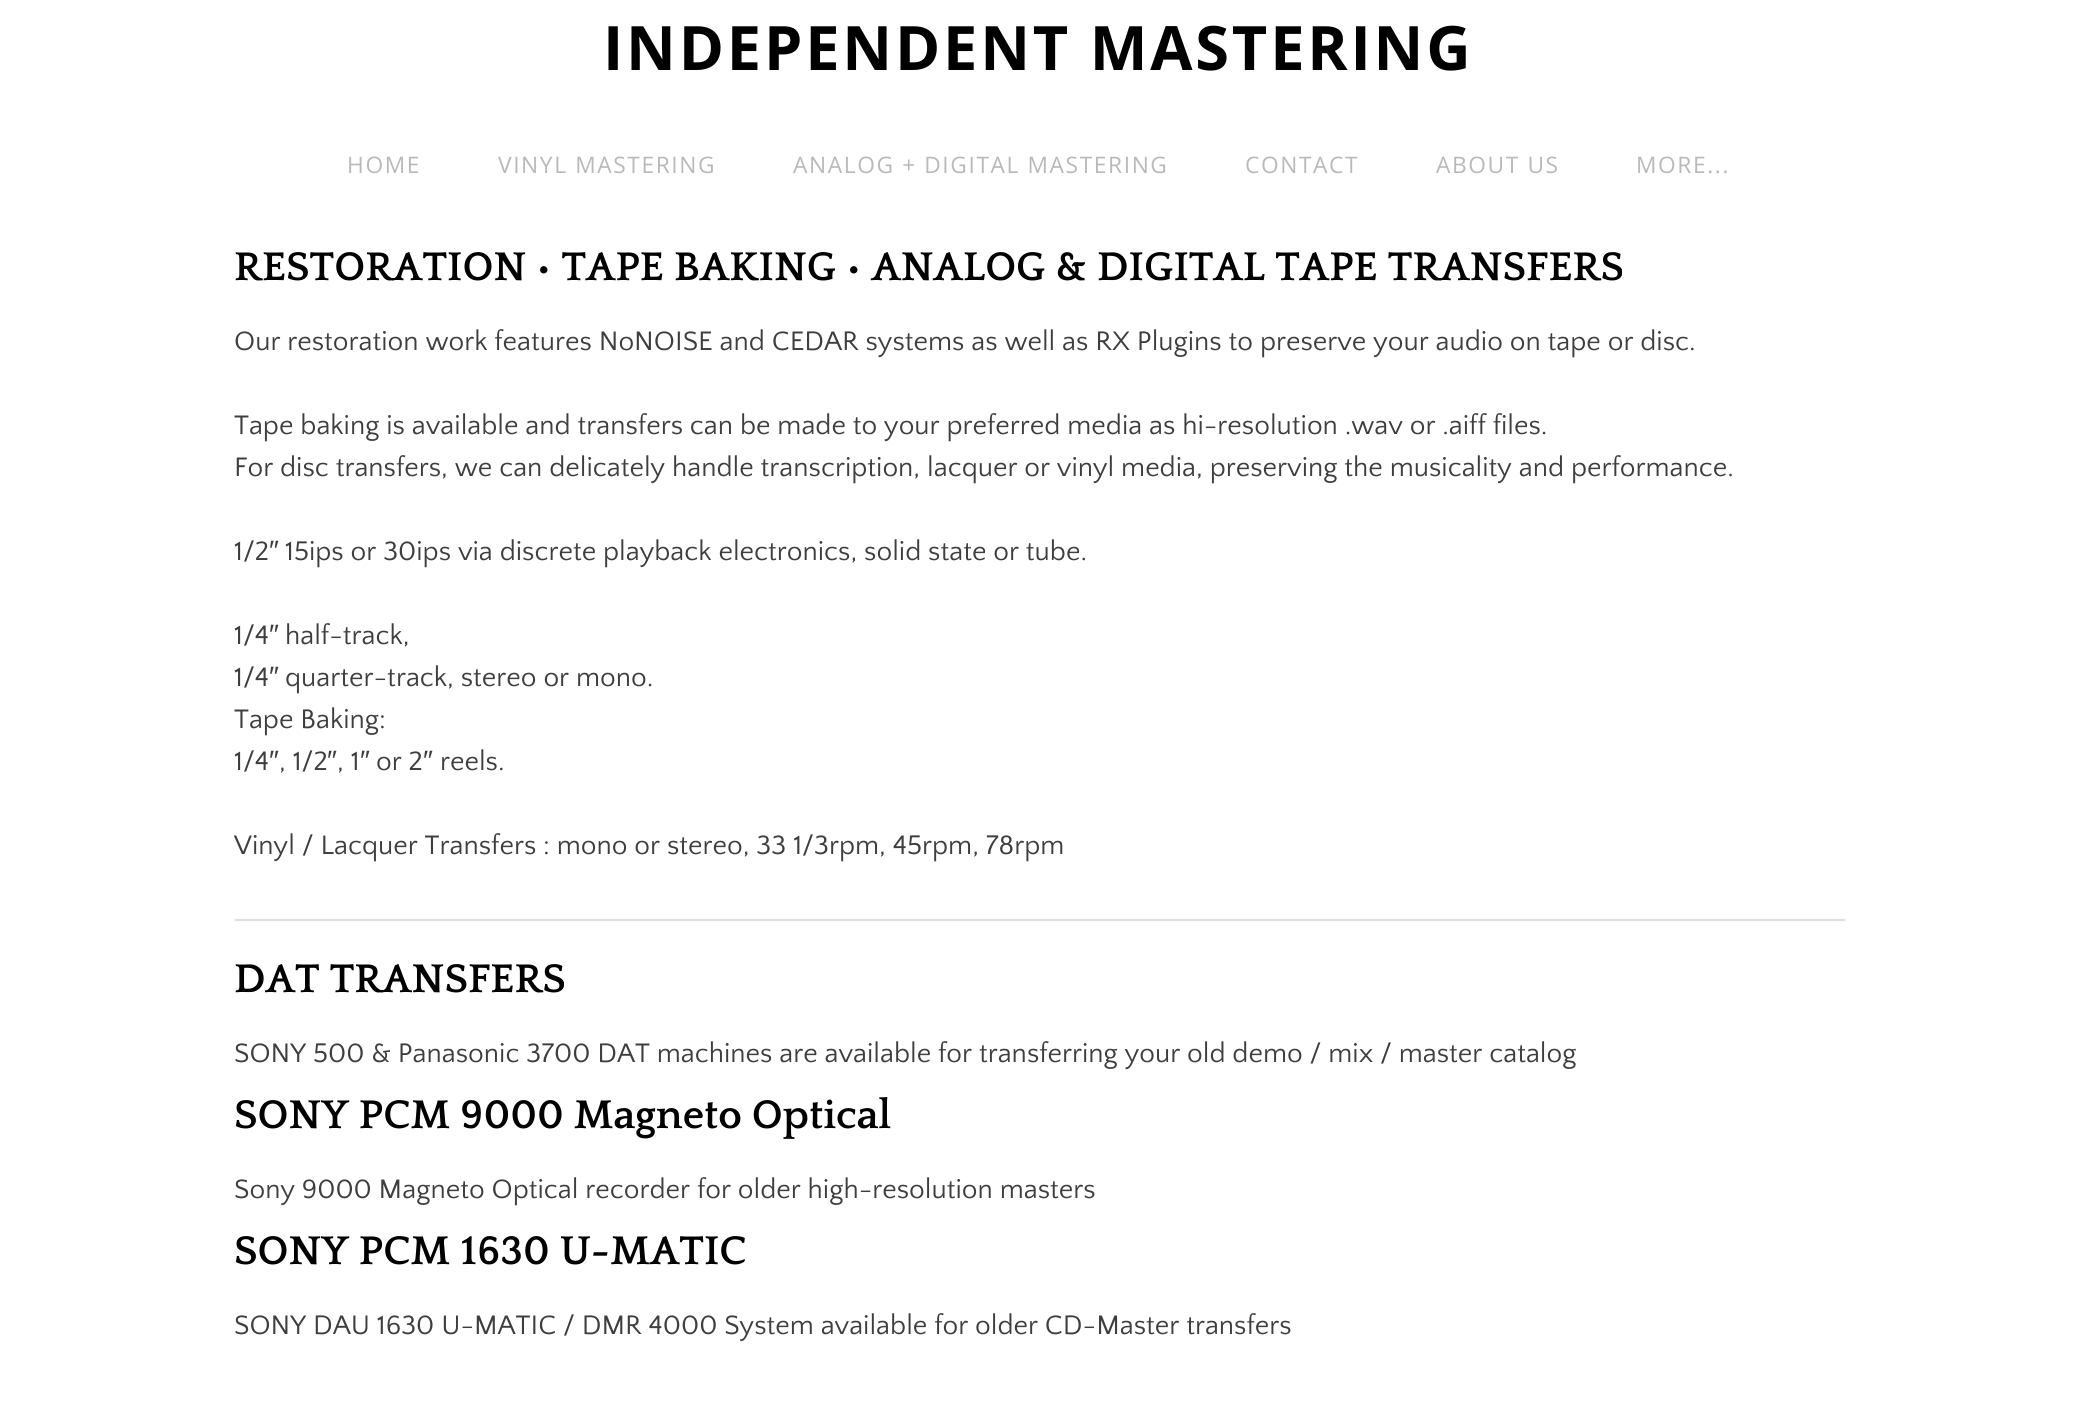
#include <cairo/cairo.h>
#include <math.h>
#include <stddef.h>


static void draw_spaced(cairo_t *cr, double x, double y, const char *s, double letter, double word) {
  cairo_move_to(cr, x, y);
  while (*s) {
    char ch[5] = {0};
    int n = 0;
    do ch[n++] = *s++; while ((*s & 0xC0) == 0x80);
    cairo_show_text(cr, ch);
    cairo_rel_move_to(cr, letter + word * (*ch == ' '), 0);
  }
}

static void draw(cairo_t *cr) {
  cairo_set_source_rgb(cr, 1, 1, 1);
  cairo_paint(cr);
  cairo_set_source_rgb(cr, 222 / 255.0, 222 / 255.0, 222 / 255.0);
  cairo_rectangle(cr, 235, 919, 1610, 2);
  cairo_fill(cr);
  cairo_select_font_face(cr, "Open Sans", CAIRO_FONT_SLANT_NORMAL, CAIRO_FONT_WEIGHT_BOLD);
  cairo_set_font_size(cr, 61.25);
  cairo_set_source_rgb(cr, 0, 0, 0);
  draw_spaced(cr, 603, 70, "INDEPENDENT MASTERING", 2.8, 0);
  cairo_select_font_face(cr, "Open Sans", CAIRO_FONT_SLANT_NORMAL, CAIRO_FONT_WEIGHT_NORMAL);
  cairo_set_font_size(cr, 22.75);
  cairo_set_source_rgb(cr, 185 / 255.0, 185 / 255.0, 185 / 255.0);
  draw_spaced(cr, 347, 173, "HOME", 1.6, 0);
  draw_spaced(cr, 498, 173, "VINYL MASTERING", 1.6, 0);
  draw_spaced(cr, 793, 173, "ANALOG + DIGITAL MASTERING", 1.6, 0);
  draw_spaced(cr, 1245, 173, "CONTACT", 1.6, 0);
  draw_spaced(cr, 1436, 173, "ABOUT US", 1.6, 0);
  draw_spaced(cr, 1636, 173, "MORE...", 1.6, 0);
  cairo_select_font_face(cr, "Quattrocento", CAIRO_FONT_SLANT_NORMAL, CAIRO_FONT_WEIGHT_BOLD);
  cairo_set_font_size(cr, 42);
  cairo_set_source_rgb(cr, 0, 0, 0);
  cairo_move_to(cr, 234, 280);
  cairo_show_text(cr, "RESTORATION • TAPE BAKING • ANALOG & DIGITAL TAPE TRANSFERS");
  cairo_select_font_face(cr, "Quattrocento Sans", CAIRO_FONT_SLANT_NORMAL, CAIRO_FONT_WEIGHT_NORMAL);
  cairo_set_font_size(cr, 28);
  cairo_set_source_rgb(cr, 62 / 255.0, 62 / 255.0, 62 / 255.0);
  cairo_move_to(cr, 234, 350);
  cairo_show_text(cr, "Our restoration work features NoNOISE and CEDAR systems as well as RX Plugins to preserve your audio on tape or disc.");
  cairo_move_to(cr, 234, 434);
  cairo_show_text(cr, "Tape baking is available and transfers can be made to your preferred media as hi-resolution .wav or .aiff files.");
  cairo_move_to(cr, 234, 476);
  cairo_show_text(cr, "For disc transfers, we can delicately handle transcription, lacquer or vinyl media, preserving the musicality and performance.");
  cairo_move_to(cr, 234, 560);
  cairo_show_text(cr, "1/2");
  cairo_select_font_face(cr, "Liberation Sans", CAIRO_FONT_SLANT_NORMAL, CAIRO_FONT_WEIGHT_NORMAL);
  cairo_move_to(cr, 269, 560);
  cairo_show_text(cr, "″");
  cairo_select_font_face(cr, "Quattrocento Sans", CAIRO_FONT_SLANT_NORMAL, CAIRO_FONT_WEIGHT_NORMAL);
  cairo_move_to(cr, 285, 560);
  cairo_show_text(cr, "15ips or 30ips via discrete playback electronics, solid state or tube.");
  cairo_move_to(cr, 234, 644);
  cairo_show_text(cr, "1/4");
  cairo_select_font_face(cr, "Liberation Sans", CAIRO_FONT_SLANT_NORMAL, CAIRO_FONT_WEIGHT_NORMAL);
  cairo_move_to(cr, 269, 644);
  cairo_show_text(cr, "″");
  cairo_select_font_face(cr, "Quattrocento Sans", CAIRO_FONT_SLANT_NORMAL, CAIRO_FONT_WEIGHT_NORMAL);
  cairo_move_to(cr, 285, 644);
  cairo_show_text(cr, "half-track,");
  cairo_move_to(cr, 234, 686);
  cairo_show_text(cr, "1/4");
  cairo_select_font_face(cr, "Liberation Sans", CAIRO_FONT_SLANT_NORMAL, CAIRO_FONT_WEIGHT_NORMAL);
  cairo_move_to(cr, 269, 686);
  cairo_show_text(cr, "″");
  cairo_select_font_face(cr, "Quattrocento Sans", CAIRO_FONT_SLANT_NORMAL, CAIRO_FONT_WEIGHT_NORMAL);
  cairo_move_to(cr, 285, 686);
  cairo_show_text(cr, "quarter-track, stereo or mono.");
  cairo_move_to(cr, 234, 728);
  cairo_show_text(cr, "Tape Baking:");
  cairo_move_to(cr, 234, 770);
  cairo_show_text(cr, "1/4");
  cairo_select_font_face(cr, "Liberation Sans", CAIRO_FONT_SLANT_NORMAL, CAIRO_FONT_WEIGHT_NORMAL);
  cairo_move_to(cr, 269, 770);
  cairo_show_text(cr, "″");
  cairo_select_font_face(cr, "Quattrocento Sans", CAIRO_FONT_SLANT_NORMAL, CAIRO_FONT_WEIGHT_NORMAL);
  cairo_move_to(cr, 279, 770);
  cairo_show_text(cr, ", 1/2");
  cairo_select_font_face(cr, "Liberation Sans", CAIRO_FONT_SLANT_NORMAL, CAIRO_FONT_WEIGHT_NORMAL);
  cairo_move_to(cr, 327, 770);
  cairo_show_text(cr, "″");
  cairo_select_font_face(cr, "Quattrocento Sans", CAIRO_FONT_SLANT_NORMAL, CAIRO_FONT_WEIGHT_NORMAL);
  cairo_move_to(cr, 337, 770);
  cairo_show_text(cr, ", 1");
  cairo_select_font_face(cr, "Liberation Sans", CAIRO_FONT_SLANT_NORMAL, CAIRO_FONT_WEIGHT_NORMAL);
  cairo_move_to(cr, 360, 770);
  cairo_show_text(cr, "″");
  cairo_select_font_face(cr, "Quattrocento Sans", CAIRO_FONT_SLANT_NORMAL, CAIRO_FONT_WEIGHT_NORMAL);
  cairo_move_to(cr, 376, 770);
  cairo_show_text(cr, "or 2");
  cairo_select_font_face(cr, "Liberation Sans", CAIRO_FONT_SLANT_NORMAL, CAIRO_FONT_WEIGHT_NORMAL);
  cairo_move_to(cr, 423, 770);
  cairo_show_text(cr, "″");
  cairo_select_font_face(cr, "Quattrocento Sans", CAIRO_FONT_SLANT_NORMAL, CAIRO_FONT_WEIGHT_NORMAL);
  cairo_move_to(cr, 440, 770);
  cairo_show_text(cr, "reels.");
  cairo_move_to(cr, 234, 854);
  cairo_show_text(cr, "Vinyl / Lacquer Transfers : mono or stereo, 33 1/3rpm, 45rpm, 78rpm");
  cairo_select_font_face(cr, "Quattrocento", CAIRO_FONT_SLANT_NORMAL, CAIRO_FONT_WEIGHT_BOLD);
  cairo_set_font_size(cr, 42);
  cairo_set_source_rgb(cr, 0, 0, 0);
  cairo_move_to(cr, 234, 992);
  cairo_show_text(cr, "DAT TRANSFERS");
  cairo_select_font_face(cr, "Quattrocento Sans", CAIRO_FONT_SLANT_NORMAL, CAIRO_FONT_WEIGHT_NORMAL);
  cairo_set_font_size(cr, 28);
  cairo_set_source_rgb(cr, 62 / 255.0, 62 / 255.0, 62 / 255.0);
  cairo_move_to(cr, 234, 1062);
  cairo_show_text(cr, "SONY 500 & Panasonic 3700 DAT machines are available for transferring your old demo / mix / master catalog");
  cairo_select_font_face(cr, "Quattrocento", CAIRO_FONT_SLANT_NORMAL, CAIRO_FONT_WEIGHT_BOLD);
  cairo_set_font_size(cr, 42);
  cairo_set_source_rgb(cr, 0, 0, 0);
  cairo_move_to(cr, 234, 1128);
  cairo_show_text(cr, "SONY PCM 9000 Magneto Optical");
  cairo_select_font_face(cr, "Quattrocento Sans", CAIRO_FONT_SLANT_NORMAL, CAIRO_FONT_WEIGHT_NORMAL);
  cairo_set_font_size(cr, 28);
  cairo_set_source_rgb(cr, 62 / 255.0, 62 / 255.0, 62 / 255.0);
  cairo_move_to(cr, 234, 1198);
  cairo_show_text(cr, "Sony 9000 Magneto Optical recorder for older high-resolution masters");
  cairo_select_font_face(cr, "Quattrocento", CAIRO_FONT_SLANT_NORMAL, CAIRO_FONT_WEIGHT_BOLD);
  cairo_set_font_size(cr, 42);
  cairo_set_source_rgb(cr, 0, 0, 0);
  cairo_move_to(cr, 234, 1264);
  cairo_show_text(cr, "SONY PCM 1630 U-MATIC");
  cairo_select_font_face(cr, "Quattrocento Sans", CAIRO_FONT_SLANT_NORMAL, CAIRO_FONT_WEIGHT_NORMAL);
  cairo_set_font_size(cr, 28);
  cairo_set_source_rgb(cr, 62 / 255.0, 62 / 255.0, 62 / 255.0);
  cairo_move_to(cr, 234, 1334);
  cairo_show_text(cr, "SONY DAU 1630 U-MATIC / DMR 4000 System available for older CD-Master transfers");
}

int main(void) {
  cairo_surface_t *surface = cairo_image_surface_create(CAIRO_FORMAT_RGB24, 2077, 1408);
  cairo_t *cr = cairo_create(surface);
  cairo_font_options_t *options = cairo_font_options_create();
  cairo_font_options_set_hint_metrics(options, CAIRO_HINT_METRICS_OFF);
  cairo_font_options_set_hint_style(options, CAIRO_HINT_STYLE_NONE);
  cairo_set_font_options(cr, options);
  cairo_set_miter_limit(cr, 4);
  draw(cr);
  cairo_surface_write_to_png(surface, "out.png");
  cairo_font_options_destroy(options);
  cairo_destroy(cr);
  cairo_surface_destroy(surface);
  return 0;
}
